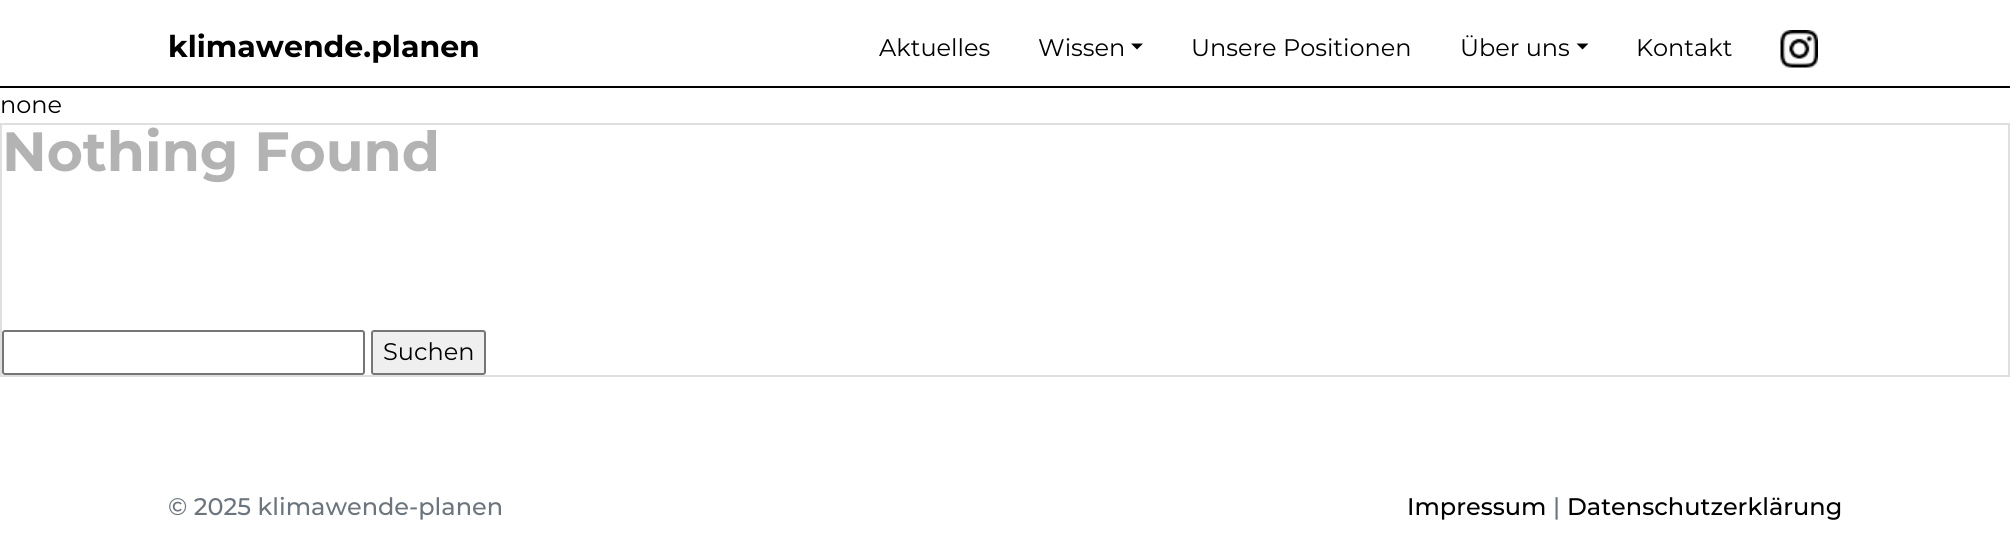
#include <cairo/cairo.h>
#include <math.h>
#include <stddef.h>


static void rounded_rect(cairo_t *cr, double x, double y, double w, double h, double r) {
  cairo_new_sub_path(cr);
  cairo_arc(cr, x + w - r, y + h - r, r, 0, M_PI / 2);
  cairo_arc(cr, x + r, y + h - r, r, M_PI / 2, M_PI);
  cairo_arc(cr, x + r, y + r, r, M_PI, 1.5 * M_PI);
  cairo_arc(cr, x + w - r, y + r, r, 1.5 * M_PI, 2 * M_PI);
  cairo_close_path(cr);
}

static void draw_image(cairo_t *cr, const char *path, double x, double y, double w, double h) {
  cairo_surface_t *image = cairo_image_surface_create_from_png(path);
  cairo_save(cr);
  cairo_set_source_surface(cr, image, x, y);
  cairo_rectangle(cr, x, y, w, h);
  cairo_fill(cr);
  cairo_restore(cr);
  cairo_surface_destroy(image);
}

static void draw(cairo_t *cr) {
  cairo_set_source_rgb(cr, 1, 1, 1);
  cairo_paint(cr);
  cairo_set_source_rgb(cr, 0, 0, 0);
  cairo_rectangle(cr, 0, 86, 2010, 2);
  cairo_fill(cr);
  cairo_new_path(cr);
  cairo_move_to(cr, 1131, 43.5);
  cairo_line_to(cr, 1143, 43.5);
  cairo_line_to(cr, 1137, 49.5);
  cairo_close_path(cr);
  cairo_fill(cr);
  cairo_new_path(cr);
  cairo_move_to(cr, 1576.5, 43.5);
  cairo_line_to(cr, 1588.5, 43.5);
  cairo_line_to(cr, 1582.5, 49.5);
  cairo_close_path(cr);
  cairo_fill(cr);
  draw_image(cr, "images/1.png", 1780, 30, 38, 38);
  cairo_rectangle(cr, 1, 124, 2008, 252);
  cairo_set_source_rgb(cr, 223 / 255.0, 223 / 255.0, 223 / 255.0);
  cairo_stroke(cr);
  rounded_rect(cr, 3, 331, 361, 43, 2);
  cairo_set_source_rgb(cr, 118 / 255.0, 118 / 255.0, 118 / 255.0);
  cairo_stroke(cr);
  cairo_set_source_rgb(cr, 239 / 255.0, 239 / 255.0, 239 / 255.0);
  rounded_rect(cr, 372, 331, 113, 43, 2);
  cairo_fill_preserve(cr);
  cairo_set_source_rgb(cr, 118 / 255.0, 118 / 255.0, 118 / 255.0);
  cairo_stroke(cr);
  cairo_select_font_face(cr, "Montserrat", CAIRO_FONT_SLANT_NORMAL, CAIRO_FONT_WEIGHT_BOLD);
  cairo_set_font_size(cr, 30);
  cairo_set_source_rgb(cr, 0, 0, 0);
  cairo_move_to(cr, 168, 57);
  cairo_show_text(cr, "klimawende.planen");
  cairo_select_font_face(cr, "Montserrat", CAIRO_FONT_SLANT_NORMAL, CAIRO_FONT_WEIGHT_NORMAL);
  cairo_set_font_size(cr, 24);
  cairo_move_to(cr, 879, 56);
  cairo_show_text(cr, "Aktuelles");
  cairo_move_to(cr, 1038, 56);
  cairo_show_text(cr, "Wissen");
  cairo_move_to(cr, 1191, 56);
  cairo_show_text(cr, "Unsere Positionen");
  cairo_move_to(cr, 1460, 56);
  cairo_show_text(cr, "Über uns");
  cairo_move_to(cr, 1636, 56);
  cairo_show_text(cr, "Kontakt");
  cairo_move_to(cr, 0, 113);
  cairo_show_text(cr, "none");
  cairo_select_font_face(cr, "Montserrat", CAIRO_FONT_SLANT_NORMAL, CAIRO_FONT_WEIGHT_BOLD);
  cairo_set_font_size(cr, 55.25);
  cairo_set_source_rgb(cr, 179 / 255.0, 179 / 255.0, 179 / 255.0);
  cairo_move_to(cr, 2, 171);
  cairo_show_text(cr, "Nothing Found");
  cairo_select_font_face(cr, "Montserrat", CAIRO_FONT_SLANT_NORMAL, CAIRO_FONT_WEIGHT_NORMAL);
  cairo_set_font_size(cr, 24);
  cairo_set_source_rgb(cr, 0, 0, 0);
  cairo_move_to(cr, 383, 360);
  cairo_show_text(cr, "Suchen");
  cairo_select_font_face(cr, "Montserrat Medium", CAIRO_FONT_SLANT_NORMAL, CAIRO_FONT_WEIGHT_NORMAL);
  cairo_set_source_rgb(cr, 108 / 255.0, 117 / 255.0, 125 / 255.0);
  cairo_move_to(cr, 168, 515);
  cairo_show_text(cr, "© 2025 klimawende-planen");
  cairo_set_source_rgb(cr, 0, 0, 0);
  cairo_move_to(cr, 1407, 515);
  cairo_show_text(cr, "Impressum");
  cairo_set_source_rgb(cr, 108 / 255.0, 117 / 255.0, 125 / 255.0);
  cairo_move_to(cr, 1553, 515);
  cairo_show_text(cr, "|");
  cairo_set_source_rgb(cr, 0, 0, 0);
  cairo_move_to(cr, 1567, 515);
  cairo_show_text(cr, "Datenschutzerklärung");
}

int main(void) {
  cairo_surface_t *surface = cairo_image_surface_create(CAIRO_FORMAT_RGB24, 2010, 554);
  cairo_t *cr = cairo_create(surface);
  cairo_font_options_t *options = cairo_font_options_create();
  cairo_font_options_set_hint_metrics(options, CAIRO_HINT_METRICS_OFF);
  cairo_font_options_set_hint_style(options, CAIRO_HINT_STYLE_NONE);
  cairo_set_font_options(cr, options);
  cairo_set_miter_limit(cr, 4);
  draw(cr);
  cairo_surface_write_to_png(surface, "out.png");
  cairo_font_options_destroy(options);
  cairo_destroy(cr);
  cairo_surface_destroy(surface);
  return 0;
}
